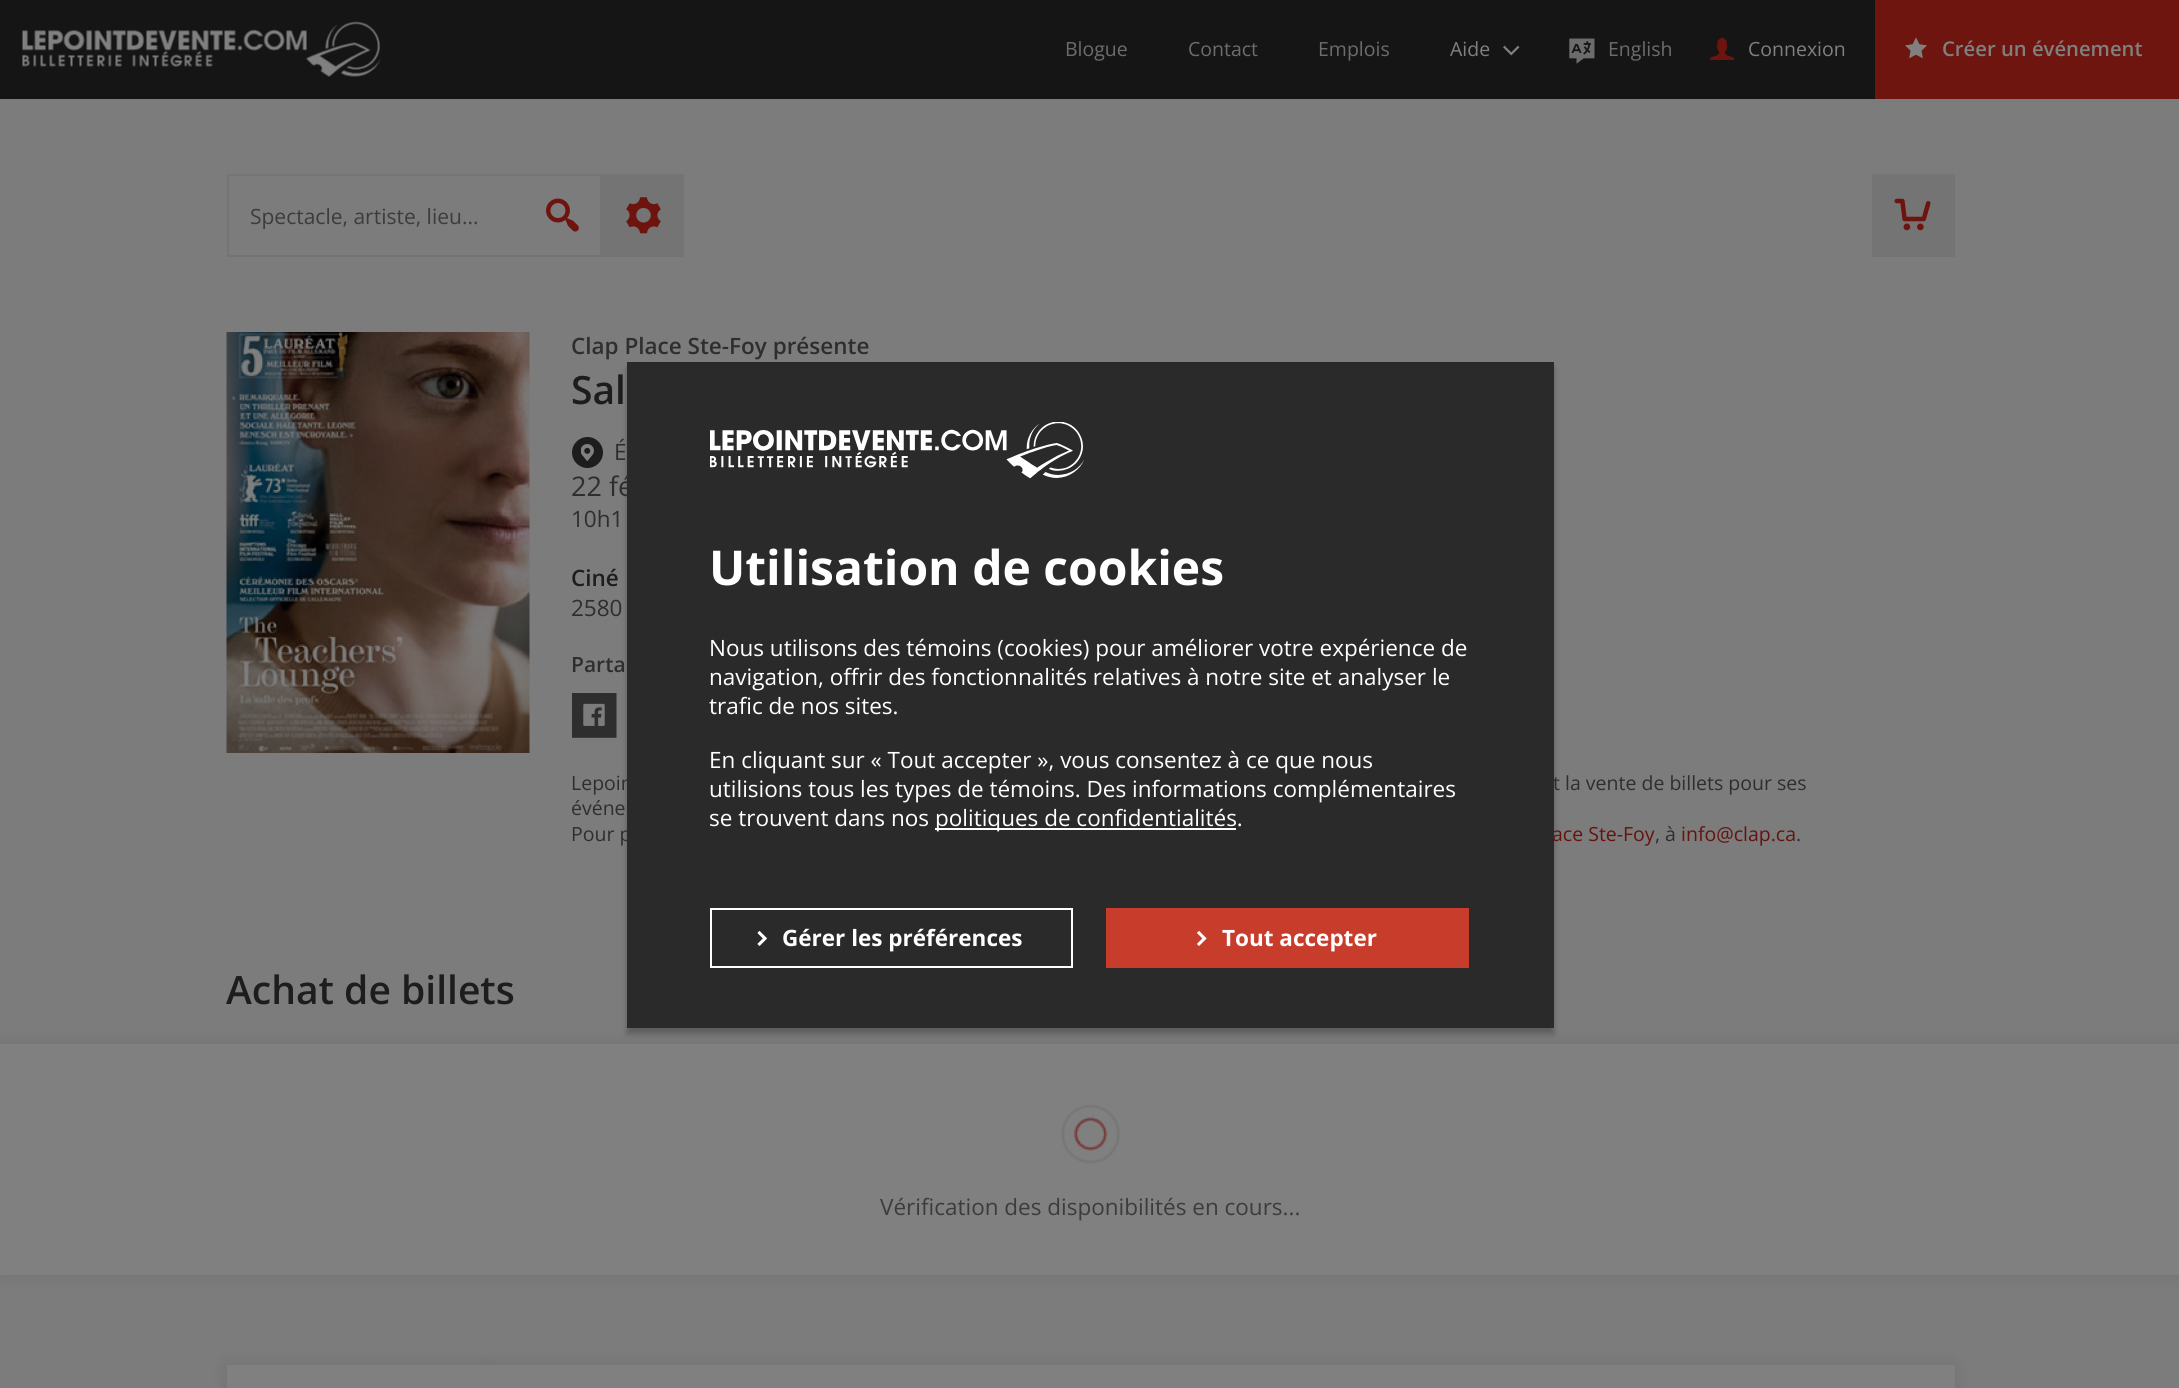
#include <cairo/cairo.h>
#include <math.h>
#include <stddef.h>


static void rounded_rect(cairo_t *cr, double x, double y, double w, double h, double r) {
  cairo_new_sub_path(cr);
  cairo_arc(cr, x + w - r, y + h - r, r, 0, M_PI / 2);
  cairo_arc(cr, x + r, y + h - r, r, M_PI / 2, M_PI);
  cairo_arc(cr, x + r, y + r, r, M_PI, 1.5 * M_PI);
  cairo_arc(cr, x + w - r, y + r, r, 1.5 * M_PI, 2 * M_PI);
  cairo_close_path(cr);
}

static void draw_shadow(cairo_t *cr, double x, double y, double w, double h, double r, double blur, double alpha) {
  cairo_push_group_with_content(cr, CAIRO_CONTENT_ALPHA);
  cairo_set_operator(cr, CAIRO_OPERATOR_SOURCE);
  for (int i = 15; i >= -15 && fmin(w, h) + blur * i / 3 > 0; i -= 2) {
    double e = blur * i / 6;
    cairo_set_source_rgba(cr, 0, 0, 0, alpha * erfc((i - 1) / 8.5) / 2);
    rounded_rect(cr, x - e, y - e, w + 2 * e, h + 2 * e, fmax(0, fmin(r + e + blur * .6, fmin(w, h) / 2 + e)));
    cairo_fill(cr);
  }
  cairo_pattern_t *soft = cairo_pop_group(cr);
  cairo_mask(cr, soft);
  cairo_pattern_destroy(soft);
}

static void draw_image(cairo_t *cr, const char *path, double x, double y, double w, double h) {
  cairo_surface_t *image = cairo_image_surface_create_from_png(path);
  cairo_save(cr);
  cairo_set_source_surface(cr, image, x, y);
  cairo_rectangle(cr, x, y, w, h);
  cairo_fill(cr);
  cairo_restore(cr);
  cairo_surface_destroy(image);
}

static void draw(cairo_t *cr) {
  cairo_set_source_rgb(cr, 124 / 255.0, 124 / 255.0, 124 / 255.0);
  cairo_paint(cr);
  cairo_set_source_rgb(cr, 21 / 255.0, 21 / 255.0, 21 / 255.0);
  cairo_rectangle(cr, 0, 0, 1875, 99);
  cairo_fill(cr);
  draw_image(cr, "images/1.png", 22, 21, 359, 56);
  draw_image(cr, "images/2.png", 1503, 45, 17, 11);
  draw_image(cr, "images/3.png", 1569, 38, 26, 26);
  draw_image(cr, "images/4.png", 1710, 37, 25, 23);
  cairo_set_source_rgb(cr, 109 / 255.0, 21 / 255.0, 14 / 255.0);
  cairo_rectangle(cr, 1875, 0, 304, 99);
  cairo_fill(cr);
  draw_image(cr, "images/5.png", 1905, 37, 22, 22);
  cairo_set_source_rgb(cr, 116 / 255.0, 116 / 255.0, 116 / 255.0);
  cairo_rectangle(cr, 602, 174, 82, 83);
  cairo_fill(cr);
  cairo_rectangle(cr, 228, 175, 373, 81);
  cairo_stroke(cr);
  draw_image(cr, "images/6.png", 546, 198, 33, 34);
  draw_image(cr, "images/7.png", 626, 197, 35, 37);
  cairo_rectangle(cr, 1872, 174, 83, 83);
  cairo_fill(cr);
  draw_image(cr, "images/8.png", 1894, 198, 37, 33);
  draw_image(cr, "images/9.png", 226, 332, 304, 421);
  cairo_set_source_rgb(cr, 29 / 255.0, 29 / 255.0, 29 / 255.0);
  cairo_arc(cr, 587.5, 452.5, 15.5, 0, 2 * M_PI);
  cairo_fill(cr);
  draw_image(cr, "images/10.png", 581, 444, 13, 17);
  draw_image(cr, "images/11.png", 572, 693, 45, 45);
  cairo_set_source_rgb(cr, 0, 0, 0);
  draw_shadow(cr, 0, 1044, 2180, 231, 0, 9, 0.1);
  cairo_set_source_rgb(cr, 128 / 255.0, 128 / 255.0, 128 / 255.0);
  cairo_rectangle(cr, 0, 1044, 2179, 231);
  cairo_fill(cr);
  draw_image(cr, "images/12.png", 1061, 1104, 59, 60);
  cairo_set_source_rgb(cr, 0, 0, 0);
  draw_shadow(cr, 489, 1365, 1466, 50, 0, 9, 0.1);
  cairo_set_source_rgb(cr, 128 / 255.0, 128 / 255.0, 128 / 255.0);
  cairo_rectangle(cr, 497, 1365, 1458, 23);
  cairo_fill(cr);
  cairo_set_source_rgb(cr, 0, 0, 0);
  draw_shadow(cr, 227, 1365, 255, 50, 0, 9, 0.1);
  cairo_set_source_rgb(cr, 128 / 255.0, 128 / 255.0, 128 / 255.0);
  cairo_rectangle(cr, 227, 1365, 270, 23);
  cairo_fill(cr);
  cairo_set_source_rgb(cr, 0, 0, 0);
  draw_shadow(cr, 627, 368, 927, 666, 0, 3, 0.25);
  cairo_select_font_face(cr, "Open Sans", CAIRO_FONT_SLANT_NORMAL, CAIRO_FONT_WEIGHT_NORMAL);
  cairo_set_font_size(cr, 19.5);
  cairo_set_source_rgb(cr, 108 / 255.0, 108 / 255.0, 108 / 255.0);
  cairo_move_to(cr, 1065, 56);
  cairo_show_text(cr, "Blogue");
  cairo_move_to(cr, 1188, 56);
  cairo_show_text(cr, "Contact");
  cairo_move_to(cr, 1318, 56);
  cairo_show_text(cr, "Emplois");
  cairo_set_source_rgb(cr, 128 / 255.0, 128 / 255.0, 128 / 255.0);
  cairo_move_to(cr, 1450, 56);
  cairo_show_text(cr, "Aide");
  cairo_set_source_rgb(cr, 108 / 255.0, 108 / 255.0, 108 / 255.0);
  cairo_move_to(cr, 1608, 56);
  cairo_show_text(cr, "English");
  cairo_set_source_rgb(cr, 128 / 255.0, 128 / 255.0, 128 / 255.0);
  cairo_move_to(cr, 1748, 56);
  cairo_show_text(cr, "Connexion");
  cairo_select_font_face(cr, "Open Sans SemiBold", CAIRO_FONT_SLANT_NORMAL, CAIRO_FONT_WEIGHT_NORMAL);
  cairo_set_font_size(cr, 20.25);
  cairo_move_to(cr, 1942, 56);
  cairo_show_text(cr, "Créer un événement");
  cairo_select_font_face(cr, "Open Sans", CAIRO_FONT_SLANT_NORMAL, CAIRO_FONT_WEIGHT_NORMAL);
  cairo_set_font_size(cr, 21);
  cairo_set_source_rgb(cr, 60 / 255.0, 60 / 255.0, 60 / 255.0);
  cairo_move_to(cr, 250, 224);
  cairo_show_text(cr, "Spectacle, artiste, lieu...");
  cairo_select_font_face(cr, "Open Sans SemiBold", CAIRO_FONT_SLANT_NORMAL, CAIRO_FONT_WEIGHT_NORMAL);
  cairo_set_font_size(cr, 22.5);
  cairo_set_source_rgb(cr, 46 / 255.0, 46 / 255.0, 46 / 255.0);
  cairo_move_to(cr, 571, 354);
  cairo_show_text(cr, "Clap Place Ste-Foy présente");
  cairo_set_font_size(cr, 39);
  cairo_set_source_rgb(cr, 29 / 255.0, 29 / 255.0, 29 / 255.0);
  cairo_move_to(cr, 571, 404);
  cairo_show_text(cr, "Sal");
  cairo_select_font_face(cr, "Open Sans", CAIRO_FONT_SLANT_NORMAL, CAIRO_FONT_WEIGHT_NORMAL);
  cairo_set_font_size(cr, 22.5);
  cairo_set_source_rgb(cr, 46 / 255.0, 46 / 255.0, 46 / 255.0);
  cairo_move_to(cr, 614, 460);
  cairo_show_text(cr, "É");
  cairo_set_font_size(cr, 27);
  cairo_move_to(cr, 571, 496);
  cairo_show_text(cr, "22 fé");
  cairo_set_font_size(cr, 22.5);
  cairo_move_to(cr, 571, 527);
  cairo_show_text(cr, "10h1");
  cairo_select_font_face(cr, "Open Sans SemiBold", CAIRO_FONT_SLANT_NORMAL, CAIRO_FONT_WEIGHT_NORMAL);
  cairo_set_source_rgb(cr, 29 / 255.0, 29 / 255.0, 29 / 255.0);
  cairo_move_to(cr, 571, 586);
  cairo_show_text(cr, "Ciné");
  cairo_select_font_face(cr, "Open Sans", CAIRO_FONT_SLANT_NORMAL, CAIRO_FONT_WEIGHT_NORMAL);
  cairo_set_source_rgb(cr, 46 / 255.0, 46 / 255.0, 46 / 255.0);
  cairo_move_to(cr, 571, 616);
  cairo_show_text(cr, "2580");
  cairo_select_font_face(cr, "Open Sans SemiBold", CAIRO_FONT_SLANT_NORMAL, CAIRO_FONT_WEIGHT_NORMAL);
  cairo_set_font_size(cr, 21);
  cairo_move_to(cr, 571, 672);
  cairo_show_text(cr, "Parta");
  cairo_select_font_face(cr, "Open Sans", CAIRO_FONT_SLANT_NORMAL, CAIRO_FONT_WEIGHT_NORMAL);
  cairo_set_font_size(cr, 19.5);
  cairo_move_to(cr, 571, 790);
  cairo_show_text(cr, "Lepoin");
  cairo_move_to(cr, 1553, 790);
  cairo_show_text(cr, "t la vente de billets pour ses");
  cairo_move_to(cr, 571, 815);
  cairo_show_text(cr, "événe");
  cairo_move_to(cr, 571, 841);
  cairo_show_text(cr, "Pour p");
  cairo_set_source_rgb(cr, 100 / 255.0, 19 / 255.0, 13 / 255.0);
  cairo_move_to(cr, 1552, 841);
  cairo_show_text(cr, "ace Ste-Foy");
  cairo_set_source_rgb(cr, 46 / 255.0, 46 / 255.0, 46 / 255.0);
  cairo_move_to(cr, 1655, 841);
  cairo_show_text(cr, ", à");
  cairo_set_source_rgb(cr, 100 / 255.0, 19 / 255.0, 13 / 255.0);
  cairo_move_to(cr, 1681, 841);
  cairo_show_text(cr, "info@clap.ca");
  cairo_set_source_rgb(cr, 46 / 255.0, 46 / 255.0, 46 / 255.0);
  cairo_move_to(cr, 1796, 841);
  cairo_show_text(cr, ".");
  cairo_select_font_face(cr, "Open Sans SemiBold", CAIRO_FONT_SLANT_NORMAL, CAIRO_FONT_WEIGHT_NORMAL);
  cairo_set_font_size(cr, 39);
  cairo_set_source_rgb(cr, 29 / 255.0, 29 / 255.0, 29 / 255.0);
  cairo_move_to(cr, 226, 1004);
  cairo_show_text(cr, "Achat de billets");
  cairo_select_font_face(cr, "Open Sans", CAIRO_FONT_SLANT_NORMAL, CAIRO_FONT_WEIGHT_NORMAL);
  cairo_set_font_size(cr, 22.5);
  cairo_set_source_rgb(cr, 60 / 255.0, 60 / 255.0, 60 / 255.0);
  cairo_move_to(cr, 880, 1215);
  cairo_show_text(cr, "Vérification des disponibilités en cours...");
  cairo_set_source_rgb(cr, 42 / 255.0, 42 / 255.0, 42 / 255.0);
  cairo_rectangle(cr, 627, 362, 927, 666);
  cairo_fill(cr);
  draw_image(cr, "images/13.png", 710, 422, 374, 57);
  cairo_select_font_face(cr, "Open Sans", CAIRO_FONT_SLANT_NORMAL, CAIRO_FONT_WEIGHT_BOLD);
  cairo_set_font_size(cr, 48);
  cairo_set_source_rgb(cr, 1, 1, 1);
  cairo_move_to(cr, 709, 585);
  cairo_show_text(cr, "Utilisation de cookies");
  cairo_select_font_face(cr, "Open Sans", CAIRO_FONT_SLANT_NORMAL, CAIRO_FONT_WEIGHT_NORMAL);
  cairo_set_font_size(cr, 22.5);
  cairo_move_to(cr, 709, 656);
  cairo_show_text(cr, "Nous utilisons des témoins (cookies) pour améliorer votre expérience de");
  cairo_move_to(cr, 709, 685);
  cairo_show_text(cr, "navigation, offrir des fonctionnalités relatives à notre site et analyser le");
  cairo_move_to(cr, 709, 714);
  cairo_show_text(cr, "trafic de nos sites.");
  cairo_move_to(cr, 709, 768);
  cairo_show_text(cr, "En cliquant sur « Tout accepter », vous consentez à ce que nous");
  cairo_move_to(cr, 709, 797);
  cairo_show_text(cr, "utilisions tous les types de témoins. Des informations complémentaires");
  cairo_move_to(cr, 709, 826);
  cairo_show_text(cr, "se trouvent dans nos");
  cairo_rectangle(cr, 935, 828, 301, 2);
  cairo_fill(cr);
  cairo_move_to(cr, 935, 826);
  cairo_show_text(cr, "politiques de confidentialités.");
  cairo_rectangle(cr, 711, 909, 361, 58);
  cairo_stroke(cr);
  draw_image(cr, "images/14.png", 757, 931, 10, 15);
  cairo_select_font_face(cr, "Open Sans", CAIRO_FONT_SLANT_NORMAL, CAIRO_FONT_WEIGHT_BOLD);
  cairo_move_to(cr, 782, 946);
  cairo_show_text(cr, "Gérer les préférences");
  cairo_set_source_rgb(cr, 200 / 255.0, 60 / 255.0, 43 / 255.0);
  cairo_rectangle(cr, 1106, 908, 363, 60);
  cairo_fill(cr);
  draw_image(cr, "images/15.png", 1197, 931, 10, 15);
  cairo_set_source_rgb(cr, 1, 1, 1);
  cairo_move_to(cr, 1222, 946);
  cairo_show_text(cr, "Tout accepter");
}

int main(void) {
  cairo_surface_t *surface = cairo_image_surface_create(CAIRO_FORMAT_RGB24, 2179, 1388);
  cairo_t *cr = cairo_create(surface);
  cairo_font_options_t *options = cairo_font_options_create();
  cairo_font_options_set_hint_metrics(options, CAIRO_HINT_METRICS_OFF);
  cairo_font_options_set_hint_style(options, CAIRO_HINT_STYLE_NONE);
  cairo_set_font_options(cr, options);
  cairo_set_miter_limit(cr, 4);
  draw(cr);
  cairo_surface_write_to_png(surface, "out.png");
  cairo_font_options_destroy(options);
  cairo_destroy(cr);
  cairo_surface_destroy(surface);
  return 0;
}
